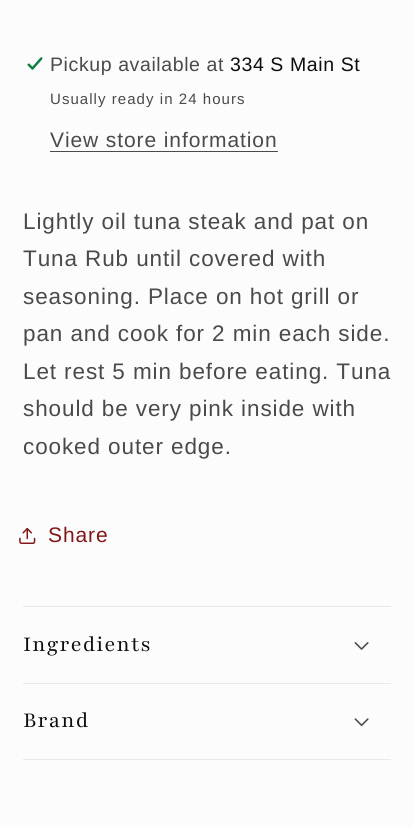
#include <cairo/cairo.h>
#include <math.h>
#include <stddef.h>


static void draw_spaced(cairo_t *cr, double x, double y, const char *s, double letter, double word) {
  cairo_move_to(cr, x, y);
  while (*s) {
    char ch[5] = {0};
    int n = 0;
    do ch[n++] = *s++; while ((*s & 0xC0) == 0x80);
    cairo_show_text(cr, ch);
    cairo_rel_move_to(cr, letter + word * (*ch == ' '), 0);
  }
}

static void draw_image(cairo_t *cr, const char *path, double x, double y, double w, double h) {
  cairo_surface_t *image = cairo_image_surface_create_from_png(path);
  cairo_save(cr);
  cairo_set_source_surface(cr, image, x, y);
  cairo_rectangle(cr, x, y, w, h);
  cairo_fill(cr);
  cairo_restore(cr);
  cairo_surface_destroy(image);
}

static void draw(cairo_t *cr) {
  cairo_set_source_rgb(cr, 252 / 255.0, 252 / 255.0, 252 / 255.0);
  cairo_paint(cr);
  draw_image(cr, "images/1.png", 27, 56, 16, 15);
  cairo_set_source_rgb(cr, 74 / 255.0, 74 / 255.0, 74 / 255.0);
  cairo_rectangle(cr, 50, 151, 228, 1);
  cairo_fill(cr);
  draw_image(cr, "images/2.png", 19, 528, 17, 16);
  cairo_set_source_rgb(cr, 233 / 255.0, 233 / 255.0, 233 / 255.0);
  cairo_rectangle(cr, 23, 606, 368, 1);
  cairo_fill(cr);
  cairo_rectangle(cr, 23, 683, 368, 1);
  cairo_fill(cr);
  draw_image(cr, "images/3.png", 354, 642, 15, 8);
  cairo_rectangle(cr, 23, 759, 368, 1);
  cairo_fill(cr);
  draw_image(cr, "images/4.png", 354, 718, 15, 8);
  cairo_select_font_face(cr, "Liberation Sans", CAIRO_FONT_SLANT_NORMAL, CAIRO_FONT_WEIGHT_NORMAL);
  cairo_set_font_size(cr, 19.5);
  cairo_set_source_rgb(cr, 74 / 255.0, 74 / 255.0, 74 / 255.0);
  draw_spaced(cr, 50, 71, "Pickup available at", 0.6, 0);
  cairo_set_source_rgb(cr, 14 / 255.0, 14 / 255.0, 14 / 255.0);
  draw_spaced(cr, 230, 71, "334 S Main St", 0.6, 0);
  cairo_set_font_size(cr, 15);
  cairo_set_source_rgb(cr, 74 / 255.0, 74 / 255.0, 74 / 255.0);
  draw_spaced(cr, 50, 104, "Usually ready in 24 hours", 1.05, 0);
  cairo_set_font_size(cr, 21);
  draw_spaced(cr, 50, 147, "View store information", 0.9, 0);
  cairo_set_font_size(cr, 22.5);
  draw_spaced(cr, 23, 229, "Lightly oil tuna steak and pat on", 0.9, 0);
  draw_spaced(cr, 23, 266, "Tuna Rub until covered with", 0.9, 0);
  draw_spaced(cr, 23, 304, "seasoning. Place on hot grill or", 0.9, 0);
  draw_spaced(cr, 23, 341, "pan and cook for 2 min each side.", 0.9, 0);
  draw_spaced(cr, 23, 379, "Let rest 5 min before eating. Tuna", 0.9, 0);
  draw_spaced(cr, 23, 416, "should be very pink inside with", 0.9, 0);
  draw_spaced(cr, 23, 454, "cooked outer edge.", 0.9, 0);
  cairo_set_font_size(cr, 21);
  cairo_set_source_rgb(cr, 130 / 255.0, 22 / 255.0, 24 / 255.0);
  draw_spaced(cr, 48, 542, "Share", 0.9, 0);
  cairo_select_font_face(cr, "Playfair", CAIRO_FONT_SLANT_NORMAL, CAIRO_FONT_WEIGHT_NORMAL);
  cairo_set_font_size(cr, 23.5);
  cairo_set_source_rgb(cr, 14 / 255.0, 14 / 255.0, 14 / 255.0);
  draw_spaced(cr, 23, 651, "Ingredients", 1, 0);
  draw_spaced(cr, 23, 727, "Brand", 1, 0);
}

int main(void) {
  cairo_surface_t *surface = cairo_image_surface_create(CAIRO_FORMAT_RGB24, 413, 827);
  cairo_t *cr = cairo_create(surface);
  cairo_font_options_t *options = cairo_font_options_create();
  cairo_font_options_set_hint_metrics(options, CAIRO_HINT_METRICS_OFF);
  cairo_font_options_set_hint_style(options, CAIRO_HINT_STYLE_NONE);
  cairo_set_font_options(cr, options);
  cairo_set_miter_limit(cr, 4);
  draw(cr);
  cairo_surface_write_to_png(surface, "out.png");
  cairo_font_options_destroy(options);
  cairo_destroy(cr);
  cairo_surface_destroy(surface);
  return 0;
}
